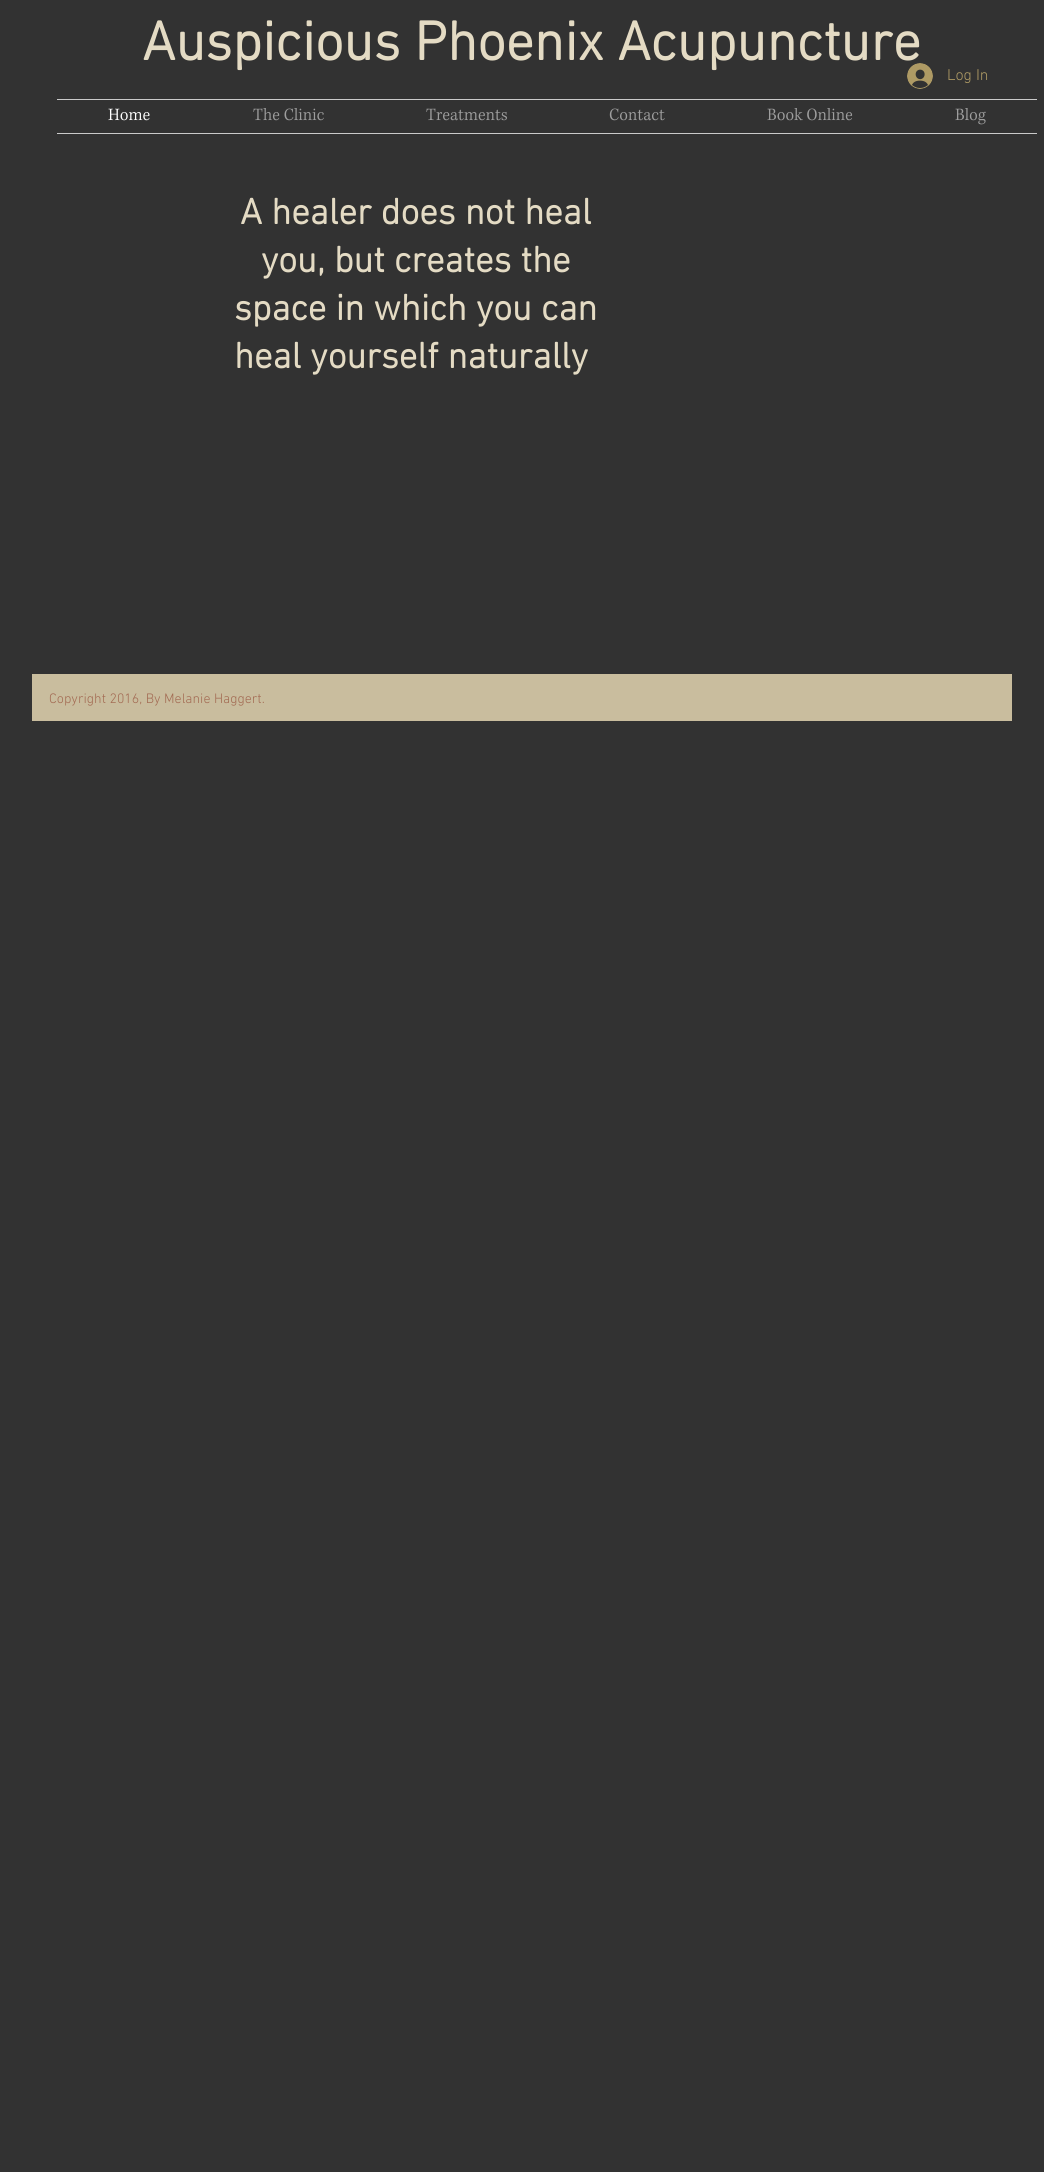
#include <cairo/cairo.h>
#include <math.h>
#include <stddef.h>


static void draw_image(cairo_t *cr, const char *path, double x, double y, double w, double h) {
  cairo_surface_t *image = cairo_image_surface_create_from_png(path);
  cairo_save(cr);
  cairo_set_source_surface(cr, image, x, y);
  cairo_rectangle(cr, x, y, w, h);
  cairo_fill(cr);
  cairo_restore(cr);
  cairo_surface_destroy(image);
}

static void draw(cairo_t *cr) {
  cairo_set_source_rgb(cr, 50 / 255.0, 50 / 255.0, 50 / 255.0);
  cairo_paint(cr);
  cairo_set_source_rgb(cr, 202 / 255.0, 202 / 255.0, 202 / 255.0);
  cairo_rectangle(cr, 57, 99, 980, 1);
  cairo_fill(cr);
  cairo_rectangle(cr, 57, 133, 980, 1);
  cairo_fill(cr);
  draw_image(cr, "images/2.png", 108, 108, 42, 13);
  draw_image(cr, "images/3.png", 253, 108, 71, 13);
  draw_image(cr, "images/4.png", 426, 108, 81, 13);
  draw_image(cr, "images/5.png", 609, 108, 56, 13);
  draw_image(cr, "images/6.png", 767, 108, 86, 13);
  draw_image(cr, "images/7.png", 955, 108, 31, 17);
  cairo_set_source_rgb(cr, 201 / 255.0, 189 / 255.0, 158 / 255.0);
  cairo_rectangle(cr, 32, 674, 980, 47);
  cairo_fill(cr);
  cairo_select_font_face(cr, "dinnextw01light", CAIRO_FONT_SLANT_NORMAL, CAIRO_FONT_WEIGHT_BOLD);
  cairo_set_font_size(cr, 56);
  cairo_set_source_rgb(cr, 228 / 255.0, 219 / 255.0, 196 / 255.0);
  cairo_move_to(cr, 142, 60);
  cairo_show_text(cr, "Auspicious Phoenix Acupuncture");
  draw_image(cr, "images/1.png", 907, 63, 26, 26);
  cairo_select_font_face(cr, "dinnextw01light Light", CAIRO_FONT_SLANT_NORMAL, CAIRO_FONT_WEIGHT_NORMAL);
  cairo_set_font_size(cr, 16);
  cairo_set_source_rgb(cr, 174 / 255.0, 154 / 255.0, 100 / 255.0);
  cairo_move_to(cr, 947, 80);
  cairo_show_text(cr, "Log In");
  cairo_select_font_face(cr, "dinnextw01light", CAIRO_FONT_SLANT_NORMAL, CAIRO_FONT_WEIGHT_BOLD);
  cairo_set_font_size(cr, 37);
  cairo_set_source_rgb(cr, 228 / 255.0, 219 / 255.0, 196 / 255.0);
  cairo_move_to(cr, 240, 224);
  cairo_show_text(cr, "A healer does not heal");
  cairo_move_to(cr, 261, 272);
  cairo_show_text(cr, "you, but creates the");
  cairo_move_to(cr, 234, 320);
  cairo_show_text(cr, "space in which you can");
  cairo_move_to(cr, 234, 368);
  cairo_show_text(cr, "heal yourself naturally");
  cairo_select_font_face(cr, "dinnextw01light Light", CAIRO_FONT_SLANT_NORMAL, CAIRO_FONT_WEIGHT_NORMAL);
  cairo_set_font_size(cr, 14);
  cairo_set_source_rgb(cr, 163 / 255.0, 107 / 255.0, 83 / 255.0);
  cairo_move_to(cr, 49, 703);
  cairo_show_text(cr, "Copyright 2016, By Melanie Haggert.");
}

int main(void) {
  cairo_surface_t *surface = cairo_image_surface_create(CAIRO_FORMAT_RGB24, 1044, 2172);
  cairo_t *cr = cairo_create(surface);
  cairo_font_options_t *options = cairo_font_options_create();
  cairo_font_options_set_hint_metrics(options, CAIRO_HINT_METRICS_OFF);
  cairo_font_options_set_hint_style(options, CAIRO_HINT_STYLE_NONE);
  cairo_set_font_options(cr, options);
  cairo_set_miter_limit(cr, 4);
  draw(cr);
  cairo_surface_write_to_png(surface, "out.png");
  cairo_font_options_destroy(options);
  cairo_destroy(cr);
  cairo_surface_destroy(surface);
  return 0;
}
